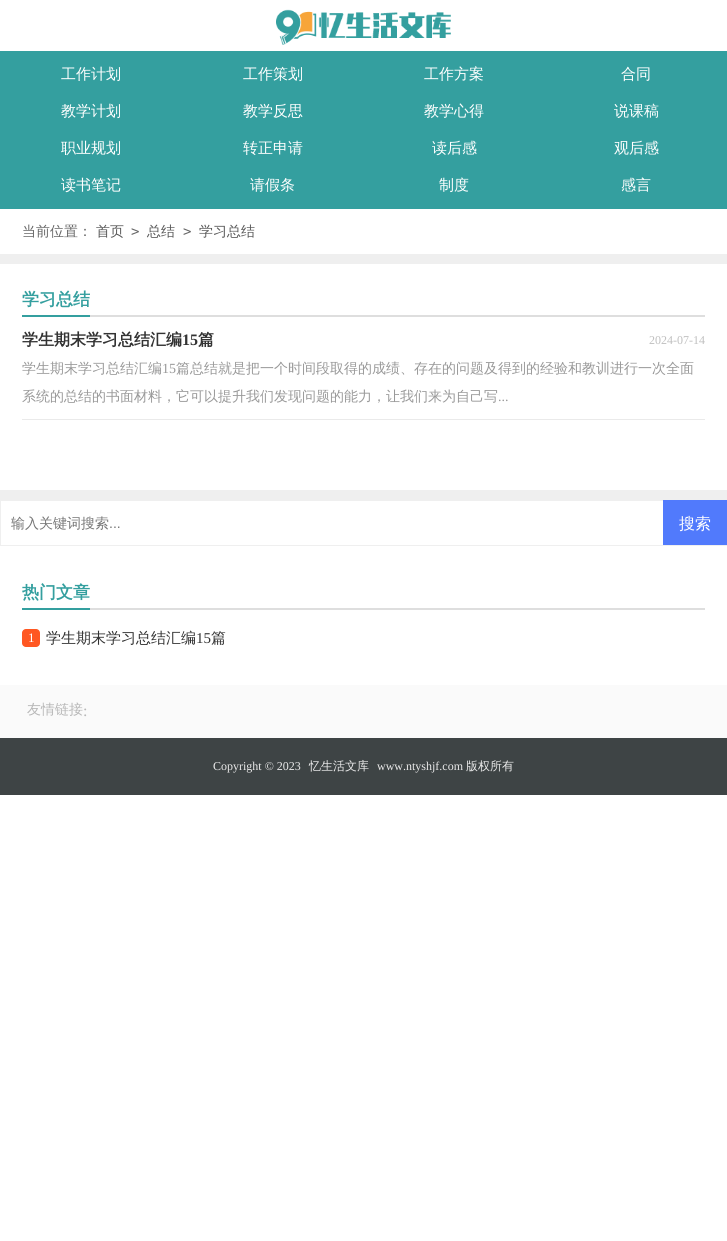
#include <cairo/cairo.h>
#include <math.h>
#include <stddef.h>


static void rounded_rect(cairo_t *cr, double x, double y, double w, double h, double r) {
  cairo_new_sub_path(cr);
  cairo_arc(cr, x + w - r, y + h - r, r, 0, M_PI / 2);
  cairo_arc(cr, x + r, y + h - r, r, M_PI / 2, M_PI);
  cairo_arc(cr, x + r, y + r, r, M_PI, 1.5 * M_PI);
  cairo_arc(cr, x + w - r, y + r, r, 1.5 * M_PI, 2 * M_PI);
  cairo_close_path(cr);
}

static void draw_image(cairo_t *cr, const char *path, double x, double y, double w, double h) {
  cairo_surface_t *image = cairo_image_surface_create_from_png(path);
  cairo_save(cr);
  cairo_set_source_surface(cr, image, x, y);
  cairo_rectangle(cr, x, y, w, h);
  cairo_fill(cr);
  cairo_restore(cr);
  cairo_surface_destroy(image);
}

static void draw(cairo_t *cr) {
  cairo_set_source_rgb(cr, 1, 1, 1);
  cairo_paint(cr);
  draw_image(cr, "images/1.png", 276, 9, 175, 36);
  cairo_set_source_rgb(cr, 52 / 255.0, 159 / 255.0, 159 / 255.0);
  cairo_rectangle(cr, 0, 51, 727, 158);
  cairo_fill(cr);
  cairo_set_source_rgb(cr, 239 / 255.0, 239 / 255.0, 239 / 255.0);
  cairo_rectangle(cr, 0, 254, 727, 10);
  cairo_fill(cr);
  cairo_set_source_rgb(cr, 222 / 255.0, 222 / 255.0, 222 / 255.0);
  cairo_rectangle(cr, 90, 315, 615, 2);
  cairo_fill(cr);
  cairo_set_source_rgb(cr, 52 / 255.0, 159 / 255.0, 159 / 255.0);
  cairo_rectangle(cr, 22, 315, 68, 2);
  cairo_fill(cr);
  cairo_set_source_rgb(cr, 234 / 255.0, 234 / 255.0, 234 / 255.0);
  cairo_rectangle(cr, 22, 419, 683, 1);
  cairo_fill(cr);
  cairo_set_source_rgb(cr, 239 / 255.0, 239 / 255.0, 239 / 255.0);
  cairo_rectangle(cr, 0, 490, 727, 10);
  cairo_fill(cr);
  cairo_rectangle(cr, 0.5, 500.5, 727, 45);
  cairo_set_line_width(cr, 1);
  cairo_stroke(cr);
  cairo_set_source_rgb(cr, 81 / 255.0, 122 / 255.0, 252 / 255.0);
  cairo_rectangle(cr, 663, 500, 64, 45);
  cairo_fill(cr);
  cairo_set_source_rgb(cr, 222 / 255.0, 222 / 255.0, 222 / 255.0);
  cairo_rectangle(cr, 90, 608, 615, 2);
  cairo_fill(cr);
  cairo_set_source_rgb(cr, 52 / 255.0, 159 / 255.0, 159 / 255.0);
  cairo_rectangle(cr, 22, 608, 68, 2);
  cairo_fill(cr);
  cairo_set_source_rgb(cr, 1, 87 / 255.0, 34 / 255.0);
  rounded_rect(cr, 22, 629, 18, 18, 4);
  cairo_fill(cr);
  cairo_set_source_rgb(cr, 250 / 255.0, 250 / 255.0, 250 / 255.0);
  cairo_rectangle(cr, 0, 685, 727, 53);
  cairo_fill(cr);
  cairo_set_source_rgb(cr, 62 / 255.0, 68 / 255.0, 69 / 255.0);
  cairo_rectangle(cr, 0, 738, 727, 57);
  cairo_fill(cr);
  cairo_select_font_face(cr, "WenQuanYi Zen Hei Medium", CAIRO_FONT_SLANT_NORMAL, CAIRO_FONT_WEIGHT_NORMAL);
  cairo_set_font_size(cr, 15);
  cairo_set_source_rgb(cr, 1, 1, 1);
  cairo_move_to(cr, 61, 79);
  cairo_show_text(cr, "工作计划");
  cairo_move_to(cr, 243, 79);
  cairo_show_text(cr, "工作策划");
  cairo_move_to(cr, 424, 79);
  cairo_show_text(cr, "工作方案");
  cairo_move_to(cr, 621, 79);
  cairo_show_text(cr, "合同");
  cairo_move_to(cr, 61, 116);
  cairo_show_text(cr, "教学计划");
  cairo_move_to(cr, 243, 116);
  cairo_show_text(cr, "教学反思");
  cairo_move_to(cr, 424, 116);
  cairo_show_text(cr, "教学心得");
  cairo_move_to(cr, 614, 116);
  cairo_show_text(cr, "说课稿");
  cairo_move_to(cr, 61, 153);
  cairo_show_text(cr, "职业规划");
  cairo_move_to(cr, 243, 153);
  cairo_show_text(cr, "转正申请");
  cairo_move_to(cr, 432, 153);
  cairo_show_text(cr, "读后感");
  cairo_move_to(cr, 614, 153);
  cairo_show_text(cr, "观后感");
  cairo_move_to(cr, 61, 190);
  cairo_show_text(cr, "读书笔记");
  cairo_move_to(cr, 250, 190);
  cairo_show_text(cr, "请假条");
  cairo_move_to(cr, 439, 190);
  cairo_show_text(cr, "制度");
  cairo_move_to(cr, 621, 190);
  cairo_show_text(cr, "感言");
  cairo_set_font_size(cr, 14);
  cairo_set_source_rgb(cr, 102 / 255.0, 102 / 255.0, 102 / 255.0);
  cairo_move_to(cr, 22, 236);
  cairo_show_text(cr, "当前位置：");
  cairo_set_source_rgb(cr, 88 / 255.0, 88 / 255.0, 88 / 255.0);
  cairo_move_to(cr, 96, 236);
  cairo_show_text(cr, "首页");
  cairo_select_font_face(cr, "DejaVu Sans Mono", CAIRO_FONT_SLANT_NORMAL, CAIRO_FONT_WEIGHT_NORMAL);
  cairo_set_source_rgb(cr, 102 / 255.0, 102 / 255.0, 102 / 255.0);
  cairo_move_to(cr, 131, 236);
  cairo_show_text(cr, ">");
  cairo_select_font_face(cr, "WenQuanYi Zen Hei Medium", CAIRO_FONT_SLANT_NORMAL, CAIRO_FONT_WEIGHT_NORMAL);
  cairo_set_source_rgb(cr, 88 / 255.0, 88 / 255.0, 88 / 255.0);
  cairo_move_to(cr, 147, 236);
  cairo_show_text(cr, "总结");
  cairo_select_font_face(cr, "DejaVu Sans Mono", CAIRO_FONT_SLANT_NORMAL, CAIRO_FONT_WEIGHT_NORMAL);
  cairo_set_source_rgb(cr, 102 / 255.0, 102 / 255.0, 102 / 255.0);
  cairo_move_to(cr, 183, 236);
  cairo_show_text(cr, ">");
  cairo_select_font_face(cr, "WenQuanYi Zen Hei Medium", CAIRO_FONT_SLANT_NORMAL, CAIRO_FONT_WEIGHT_NORMAL);
  cairo_set_source_rgb(cr, 88 / 255.0, 88 / 255.0, 88 / 255.0);
  cairo_move_to(cr, 199, 236);
  cairo_show_text(cr, "学习总结");
  cairo_select_font_face(cr, "WenQuanYi Zen Hei", CAIRO_FONT_SLANT_NORMAL, CAIRO_FONT_WEIGHT_BOLD);
  cairo_set_font_size(cr, 17);
  cairo_set_source_rgb(cr, 52 / 255.0, 159 / 255.0, 159 / 255.0);
  cairo_move_to(cr, 22, 305);
  cairo_show_text(cr, "学习总结");
  cairo_set_font_size(cr, 16);
  cairo_set_source_rgb(cr, 51 / 255.0, 51 / 255.0, 51 / 255.0);
  cairo_move_to(cr, 22, 345);
  cairo_show_text(cr, "学生期末学习总结汇编");
  cairo_select_font_face(cr, "Liberation Serif", CAIRO_FONT_SLANT_NORMAL, CAIRO_FONT_WEIGHT_BOLD);
  cairo_move_to(cr, 182, 345);
  cairo_show_text(cr, "15");
  cairo_select_font_face(cr, "WenQuanYi Zen Hei", CAIRO_FONT_SLANT_NORMAL, CAIRO_FONT_WEIGHT_BOLD);
  cairo_move_to(cr, 198, 345);
  cairo_show_text(cr, "篇");
  cairo_select_font_face(cr, "Liberation Serif", CAIRO_FONT_SLANT_NORMAL, CAIRO_FONT_WEIGHT_NORMAL);
  cairo_set_font_size(cr, 12);
  cairo_set_source_rgb(cr, 191 / 255.0, 191 / 255.0, 191 / 255.0);
  cairo_move_to(cr, 649, 344);
  cairo_show_text(cr, "2024-07-14");
  cairo_select_font_face(cr, "WenQuanYi Zen Hei Medium", CAIRO_FONT_SLANT_NORMAL, CAIRO_FONT_WEIGHT_NORMAL);
  cairo_set_font_size(cr, 14);
  cairo_set_source_rgb(cr, 153 / 255.0, 153 / 255.0, 153 / 255.0);
  cairo_move_to(cr, 22, 373);
  cairo_show_text(cr, "学生期末学习总结汇编");
  cairo_select_font_face(cr, "Liberation Serif", CAIRO_FONT_SLANT_NORMAL, CAIRO_FONT_WEIGHT_NORMAL);
  cairo_move_to(cr, 162, 373);
  cairo_show_text(cr, "15");
  cairo_select_font_face(cr, "WenQuanYi Zen Hei Medium", CAIRO_FONT_SLANT_NORMAL, CAIRO_FONT_WEIGHT_NORMAL);
  cairo_move_to(cr, 176, 373);
  cairo_show_text(cr, "篇总结就是把一个时间段取得的成绩、存在的问题及得到的经验和教训进行一次全面");
  cairo_move_to(cr, 22, 401);
  cairo_show_text(cr, "系统的总结的书面材料，它可以提升我们发现问题的能力，让我们来为自己写");
  cairo_select_font_face(cr, "Liberation Serif", CAIRO_FONT_SLANT_NORMAL, CAIRO_FONT_WEIGHT_NORMAL);
  cairo_move_to(cr, 498, 401);
  cairo_show_text(cr, "...");
  cairo_select_font_face(cr, "WenQuanYi Zen Hei Medium", CAIRO_FONT_SLANT_NORMAL, CAIRO_FONT_WEIGHT_NORMAL);
  cairo_set_source_rgb(cr, 117 / 255.0, 117 / 255.0, 117 / 255.0);
  cairo_move_to(cr, 11, 528);
  cairo_show_text(cr, "输入关键词搜索");
  cairo_select_font_face(cr, "Liberation Sans", CAIRO_FONT_SLANT_NORMAL, CAIRO_FONT_WEIGHT_NORMAL);
  cairo_move_to(cr, 109, 528);
  cairo_show_text(cr, "...");
  cairo_select_font_face(cr, "WenQuanYi Zen Hei Medium", CAIRO_FONT_SLANT_NORMAL, CAIRO_FONT_WEIGHT_NORMAL);
  cairo_set_font_size(cr, 16);
  cairo_set_source_rgb(cr, 1, 1, 1);
  cairo_move_to(cr, 679, 529);
  cairo_show_text(cr, "搜索");
  cairo_select_font_face(cr, "WenQuanYi Zen Hei", CAIRO_FONT_SLANT_NORMAL, CAIRO_FONT_WEIGHT_BOLD);
  cairo_set_font_size(cr, 17);
  cairo_set_source_rgb(cr, 52 / 255.0, 159 / 255.0, 159 / 255.0);
  cairo_move_to(cr, 22, 598);
  cairo_show_text(cr, "热门文章");
  cairo_select_font_face(cr, "Liberation Serif", CAIRO_FONT_SLANT_NORMAL, CAIRO_FONT_WEIGHT_NORMAL);
  cairo_set_font_size(cr, 13);
  cairo_set_source_rgb(cr, 1, 1, 1);
  cairo_move_to(cr, 28, 642);
  cairo_show_text(cr, "1");
  cairo_select_font_face(cr, "WenQuanYi Zen Hei Medium", CAIRO_FONT_SLANT_NORMAL, CAIRO_FONT_WEIGHT_NORMAL);
  cairo_set_font_size(cr, 15);
  cairo_set_source_rgb(cr, 51 / 255.0, 51 / 255.0, 51 / 255.0);
  cairo_move_to(cr, 46, 643);
  cairo_show_text(cr, "学生期末学习总结汇编");
  cairo_select_font_face(cr, "Liberation Serif", CAIRO_FONT_SLANT_NORMAL, CAIRO_FONT_WEIGHT_NORMAL);
  cairo_move_to(cr, 196, 643);
  cairo_show_text(cr, "15");
  cairo_select_font_face(cr, "WenQuanYi Zen Hei Medium", CAIRO_FONT_SLANT_NORMAL, CAIRO_FONT_WEIGHT_NORMAL);
  cairo_move_to(cr, 211, 643);
  cairo_show_text(cr, "篇");
  cairo_set_font_size(cr, 14);
  cairo_set_source_rgb(cr, 183 / 255.0, 183 / 255.0, 183 / 255.0);
  cairo_move_to(cr, 27, 714);
  cairo_show_text(cr, "友情链接");
  cairo_select_font_face(cr, "Liberation Serif", CAIRO_FONT_SLANT_NORMAL, CAIRO_FONT_WEIGHT_NORMAL);
  cairo_set_font_size(cr, 16);
  cairo_move_to(cr, 83, 716);
  cairo_show_text(cr, ":");
  cairo_set_font_size(cr, 12);
  cairo_set_source_rgb(cr, 234 / 255.0, 234 / 255.0, 234 / 255.0);
  cairo_move_to(cr, 213, 770);
  cairo_show_text(cr, "Copyright © 2023");
  cairo_select_font_face(cr, "WenQuanYi Zen Hei Medium", CAIRO_FONT_SLANT_NORMAL, CAIRO_FONT_WEIGHT_NORMAL);
  cairo_move_to(cr, 309, 770);
  cairo_show_text(cr, "忆生活文库");
  cairo_select_font_face(cr, "Liberation Serif", CAIRO_FONT_SLANT_NORMAL, CAIRO_FONT_WEIGHT_NORMAL);
  cairo_move_to(cr, 377, 770);
  cairo_show_text(cr, "www.ntyshjf.com");
  cairo_select_font_face(cr, "WenQuanYi Zen Hei Medium", CAIRO_FONT_SLANT_NORMAL, CAIRO_FONT_WEIGHT_NORMAL);
  cairo_move_to(cr, 466, 770);
  cairo_show_text(cr, "版权所有");
}

int main(void) {
  cairo_surface_t *surface = cairo_image_surface_create(CAIRO_FORMAT_RGB24, 727, 1241);
  cairo_t *cr = cairo_create(surface);
  cairo_font_options_t *options = cairo_font_options_create();
  cairo_font_options_set_hint_metrics(options, CAIRO_HINT_METRICS_OFF);
  cairo_font_options_set_hint_style(options, CAIRO_HINT_STYLE_NONE);
  cairo_set_font_options(cr, options);
  cairo_set_miter_limit(cr, 4);
  draw(cr);
  cairo_surface_write_to_png(surface, "out.png");
  cairo_font_options_destroy(options);
  cairo_destroy(cr);
  cairo_surface_destroy(surface);
  return 0;
}
